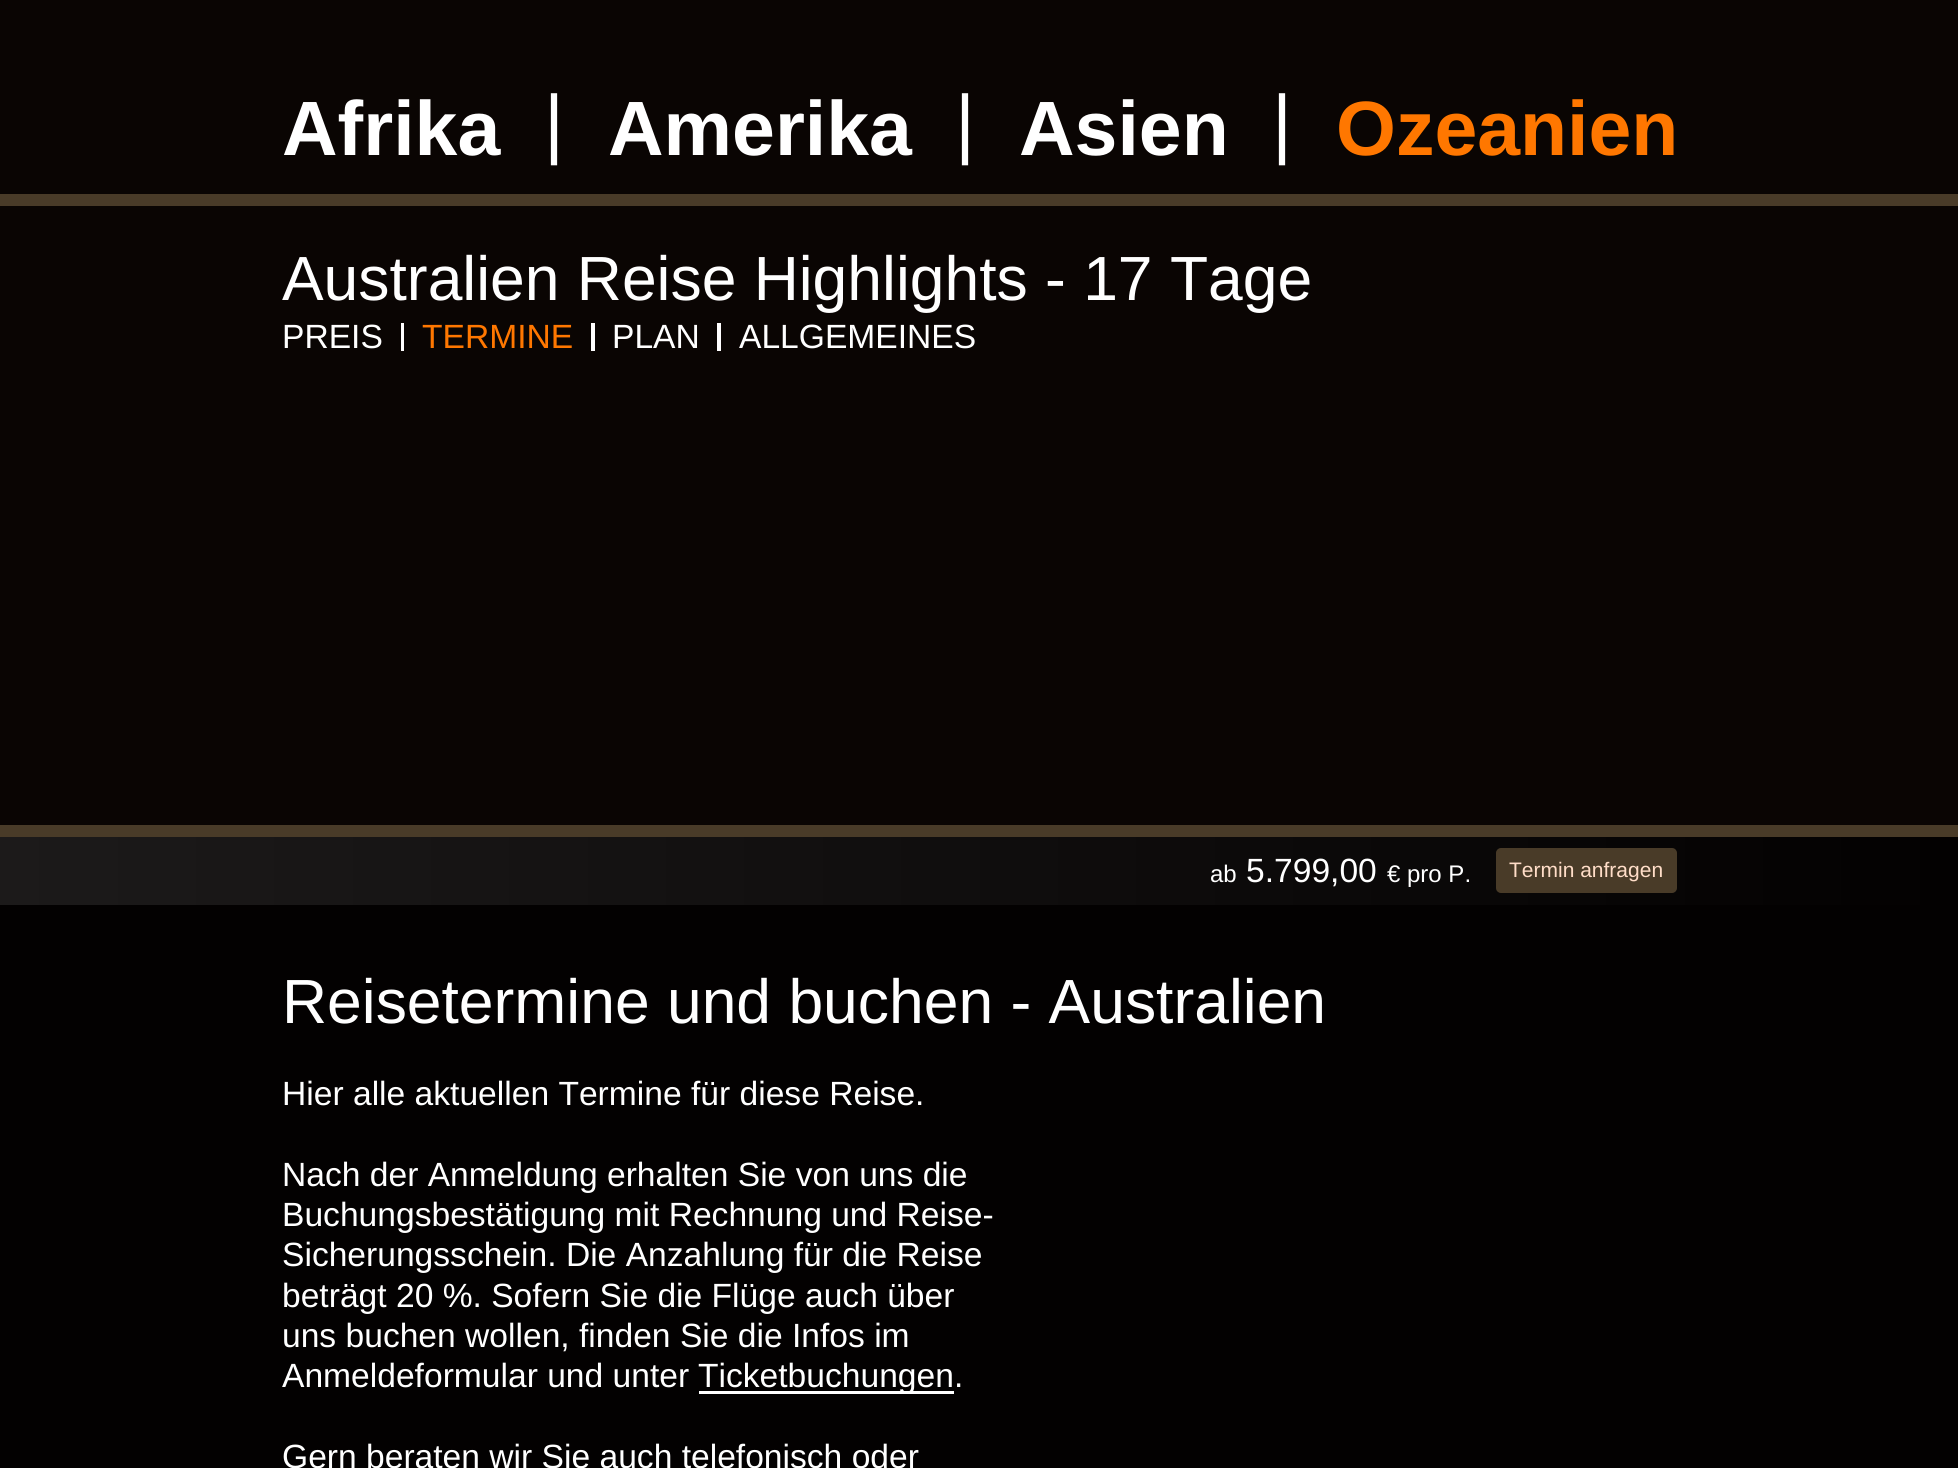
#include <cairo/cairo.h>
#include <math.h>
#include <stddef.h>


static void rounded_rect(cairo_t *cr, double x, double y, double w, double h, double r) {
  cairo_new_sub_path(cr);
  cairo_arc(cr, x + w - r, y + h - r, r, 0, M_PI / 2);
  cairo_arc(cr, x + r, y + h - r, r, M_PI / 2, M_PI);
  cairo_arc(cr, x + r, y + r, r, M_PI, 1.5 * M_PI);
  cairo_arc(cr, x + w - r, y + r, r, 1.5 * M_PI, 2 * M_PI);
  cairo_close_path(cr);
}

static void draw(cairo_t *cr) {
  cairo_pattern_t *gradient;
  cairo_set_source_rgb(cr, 10 / 255.0, 5 / 255.0, 3 / 255.0);
  cairo_paint(cr);
  cairo_set_source_rgb(cr, 73 / 255.0, 59 / 255.0, 40 / 255.0);
  cairo_rectangle(cr, 0, 194, 1958, 12);
  cairo_fill(cr);
  cairo_set_source_rgb(cr, 1, 1, 1);
  cairo_rectangle(cr, 401, 323, 3, 28);
  cairo_fill(cr);
  cairo_rectangle(cr, 591, 323, 4, 28);
  cairo_fill(cr);
  cairo_rectangle(cr, 717, 323, 4, 28);
  cairo_fill(cr);
  cairo_set_source_rgb(cr, 3 / 255.0, 1 / 255.0, 1 / 255.0);
  cairo_rectangle(cr, 0, 905, 1958, 563);
  cairo_fill(cr);
  cairo_set_source_rgb(cr, 73 / 255.0, 59 / 255.0, 40 / 255.0);
  cairo_rectangle(cr, 0, 825, 1958, 12);
  cairo_fill(cr);
  gradient = cairo_pattern_create_linear(0, 871, 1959, 871);
  cairo_pattern_add_color_stop_rgba(gradient, 0, 28 / 255.0, 26 / 255.0, 26 / 255.0, 1);
  cairo_pattern_add_color_stop_rgba(gradient, 1, 3 / 255.0, 1 / 255.0, 1 / 255.0, 1);
  cairo_set_source(cr, gradient);
  cairo_pattern_destroy(gradient);
  cairo_rectangle(cr, 0, 837, 1958, 68);
  cairo_fill(cr);
  cairo_set_source_rgb(cr, 73 / 255.0, 59 / 255.0, 40 / 255.0);
  rounded_rect(cr, 1497, 849, 179, 43, 4);
  cairo_fill_preserve(cr);
  cairo_stroke(cr);
  cairo_set_source_rgb(cr, 1, 1, 1);
  cairo_rectangle(cr, 699, 1391, 255, 3);
  cairo_fill(cr);
  cairo_select_font_face(cr, "Liberation Sans", CAIRO_FONT_SLANT_NORMAL, CAIRO_FONT_WEIGHT_BOLD);
  cairo_set_font_size(cr, 77);
  cairo_move_to(cr, 282, 155);
  cairo_show_text(cr, "Afrika");
  cairo_select_font_face(cr, "Liberation Sans", CAIRO_FONT_SLANT_NORMAL, CAIRO_FONT_WEIGHT_NORMAL);
  cairo_move_to(cr, 544, 149);
  cairo_show_text(cr, "|");
  cairo_select_font_face(cr, "Liberation Sans", CAIRO_FONT_SLANT_NORMAL, CAIRO_FONT_WEIGHT_BOLD);
  cairo_move_to(cr, 608, 155);
  cairo_show_text(cr, "Amerika");
  cairo_select_font_face(cr, "Liberation Sans", CAIRO_FONT_SLANT_NORMAL, CAIRO_FONT_WEIGHT_NORMAL);
  cairo_move_to(cr, 955, 149);
  cairo_show_text(cr, "|");
  cairo_select_font_face(cr, "Liberation Sans", CAIRO_FONT_SLANT_NORMAL, CAIRO_FONT_WEIGHT_BOLD);
  cairo_move_to(cr, 1019, 155);
  cairo_show_text(cr, "Asien");
  cairo_select_font_face(cr, "Liberation Sans", CAIRO_FONT_SLANT_NORMAL, CAIRO_FONT_WEIGHT_NORMAL);
  cairo_move_to(cr, 1272, 149);
  cairo_show_text(cr, "|");
  cairo_select_font_face(cr, "Liberation Sans", CAIRO_FONT_SLANT_NORMAL, CAIRO_FONT_WEIGHT_BOLD);
  cairo_set_source_rgb(cr, 1, 119 / 255.0, 0);
  cairo_move_to(cr, 1336, 155);
  cairo_show_text(cr, "Ozeanien");
  cairo_select_font_face(cr, "Liberation Sans", CAIRO_FONT_SLANT_NORMAL, CAIRO_FONT_WEIGHT_NORMAL);
  cairo_set_font_size(cr, 62.4);
  cairo_set_source_rgb(cr, 1, 1, 1);
  cairo_move_to(cr, 282, 300);
  cairo_show_text(cr, "Australien Reise Highlights - 17 Tage");
  cairo_set_font_size(cr, 33.6);
  cairo_move_to(cr, 282, 348);
  cairo_show_text(cr, "PREIS");
  cairo_set_source_rgb(cr, 1, 119 / 255.0, 0);
  cairo_move_to(cr, 422, 348);
  cairo_show_text(cr, "TERMINE");
  cairo_set_source_rgb(cr, 1, 1, 1);
  cairo_move_to(cr, 612, 348);
  cairo_show_text(cr, "PLAN");
  cairo_move_to(cr, 739, 348);
  cairo_show_text(cr, "ALLGEMEINES");
  cairo_set_font_size(cr, 24);
  cairo_move_to(cr, 1210, 882);
  cairo_show_text(cr, "ab");
  cairo_set_font_size(cr, 33.6);
  cairo_move_to(cr, 1246, 882);
  cairo_show_text(cr, "5.799,00");
  cairo_set_font_size(cr, 24);
  cairo_move_to(cr, 1387, 882);
  cairo_show_text(cr, "€ pro P.");
  cairo_set_font_size(cr, 21);
  cairo_set_source_rgb(cr, 1, 221 / 255.0, 200 / 255.0);
  cairo_move_to(cr, 1509, 877);
  cairo_show_text(cr, "Termin anfragen");
  cairo_set_font_size(cr, 62.4);
  cairo_set_source_rgb(cr, 1, 1, 1);
  cairo_move_to(cr, 282, 1023);
  cairo_show_text(cr, "Reisetermine und buchen - Australien");
  cairo_set_font_size(cr, 33.6);
  cairo_move_to(cr, 282, 1105);
  cairo_show_text(cr, "Hier alle aktuellen Termine für diese Reise.");
  cairo_move_to(cr, 282, 1186);
  cairo_show_text(cr, "Nach der Anmeldung erhalten Sie von uns die");
  cairo_move_to(cr, 282, 1226);
  cairo_show_text(cr, "Buchungsbestätigung mit Rechnung und Reise-");
  cairo_move_to(cr, 282, 1266);
  cairo_show_text(cr, "Sicherungsschein. Die Anzahlung für die Reise");
  cairo_move_to(cr, 282, 1307);
  cairo_show_text(cr, "beträgt 20 %. Sofern Sie die Flüge auch über");
  cairo_move_to(cr, 282, 1347);
  cairo_show_text(cr, "uns buchen wollen, finden Sie die Infos im");
  cairo_move_to(cr, 282, 1387);
  cairo_show_text(cr, "Anmeldeformular und unter");
  cairo_move_to(cr, 698, 1387);
  cairo_show_text(cr, "Ticketbuchungen.");
  cairo_move_to(cr, 282, 1468);
  cairo_show_text(cr, "Gern beraten wir Sie auch telefonisch oder");
}

int main(void) {
  cairo_surface_t *surface = cairo_image_surface_create(CAIRO_FORMAT_RGB24, 1958, 1468);
  cairo_t *cr = cairo_create(surface);
  cairo_font_options_t *options = cairo_font_options_create();
  cairo_font_options_set_hint_metrics(options, CAIRO_HINT_METRICS_OFF);
  cairo_font_options_set_hint_style(options, CAIRO_HINT_STYLE_NONE);
  cairo_set_font_options(cr, options);
  cairo_set_miter_limit(cr, 4);
  draw(cr);
  cairo_surface_write_to_png(surface, "out.png");
  cairo_font_options_destroy(options);
  cairo_destroy(cr);
  cairo_surface_destroy(surface);
  return 0;
}
